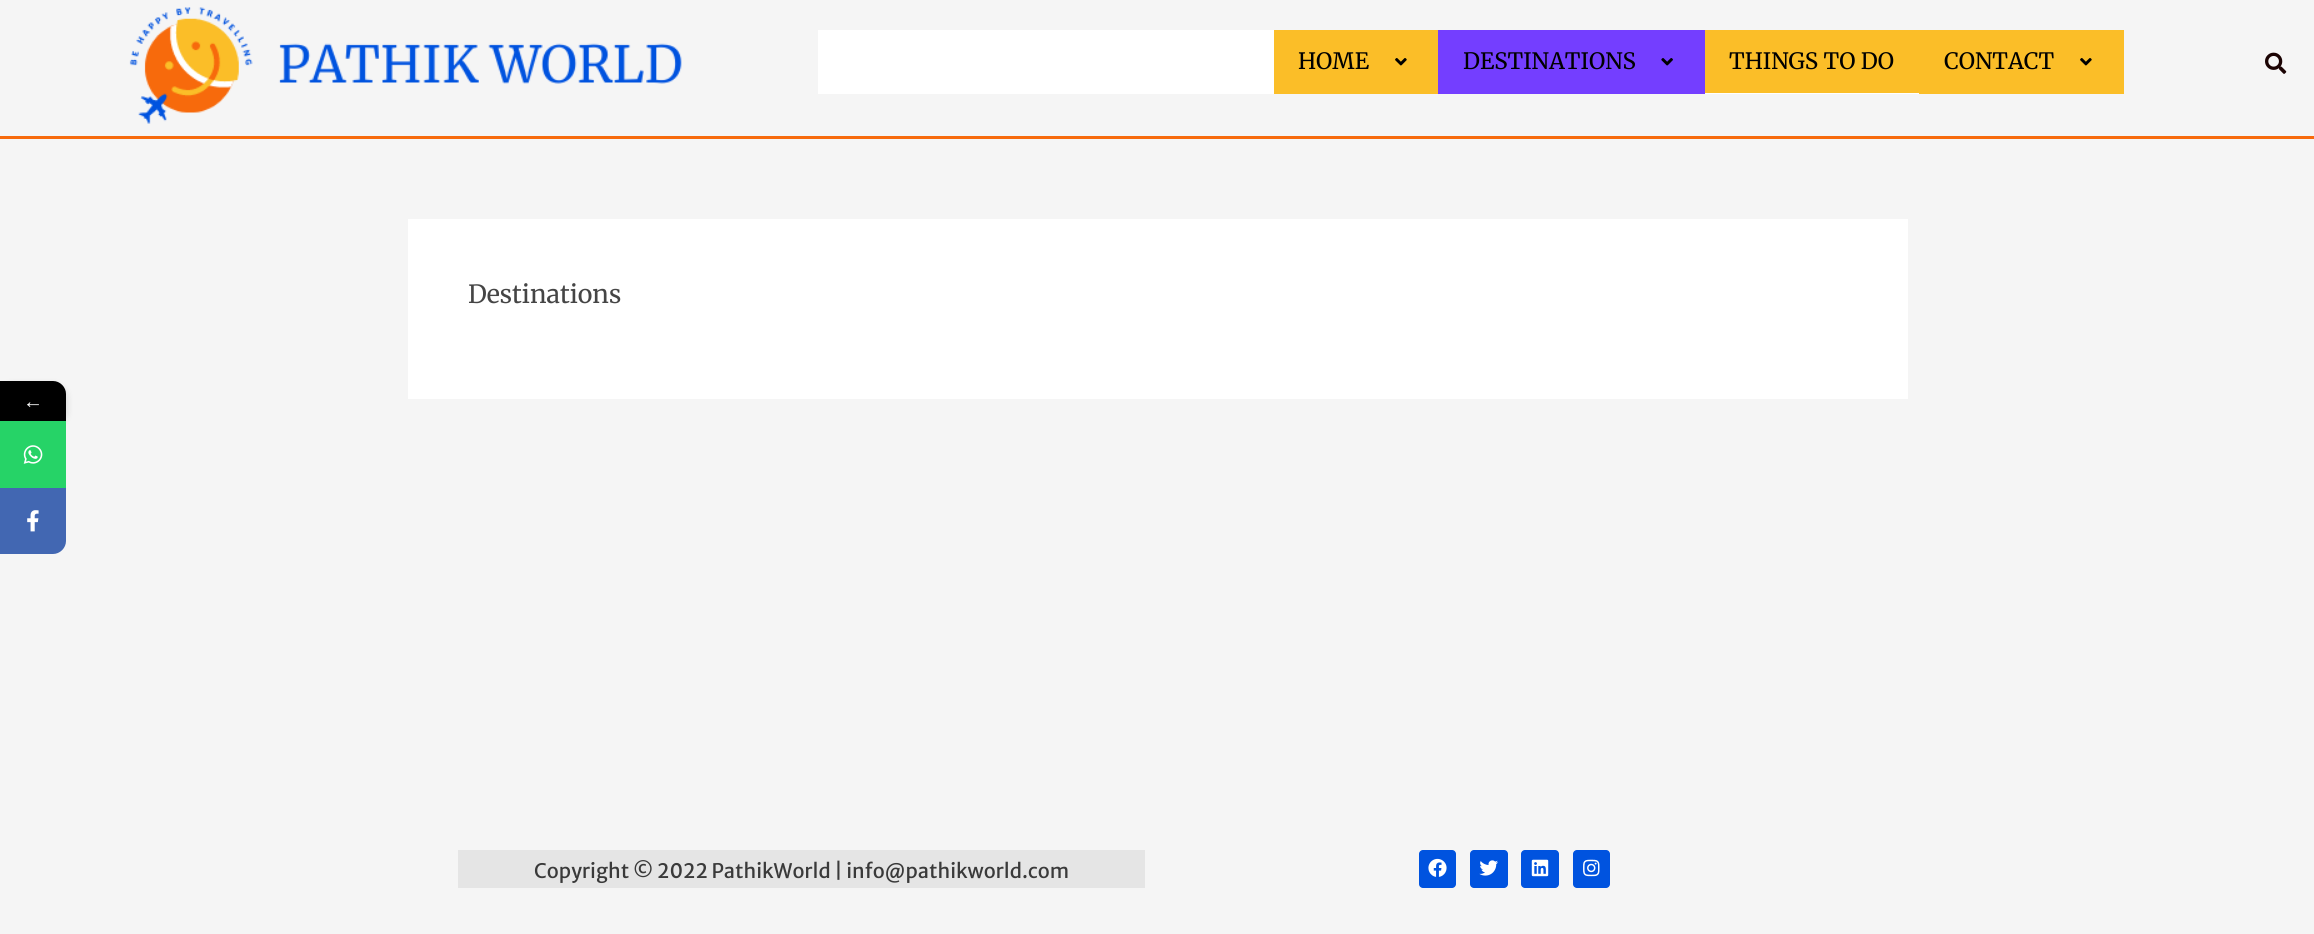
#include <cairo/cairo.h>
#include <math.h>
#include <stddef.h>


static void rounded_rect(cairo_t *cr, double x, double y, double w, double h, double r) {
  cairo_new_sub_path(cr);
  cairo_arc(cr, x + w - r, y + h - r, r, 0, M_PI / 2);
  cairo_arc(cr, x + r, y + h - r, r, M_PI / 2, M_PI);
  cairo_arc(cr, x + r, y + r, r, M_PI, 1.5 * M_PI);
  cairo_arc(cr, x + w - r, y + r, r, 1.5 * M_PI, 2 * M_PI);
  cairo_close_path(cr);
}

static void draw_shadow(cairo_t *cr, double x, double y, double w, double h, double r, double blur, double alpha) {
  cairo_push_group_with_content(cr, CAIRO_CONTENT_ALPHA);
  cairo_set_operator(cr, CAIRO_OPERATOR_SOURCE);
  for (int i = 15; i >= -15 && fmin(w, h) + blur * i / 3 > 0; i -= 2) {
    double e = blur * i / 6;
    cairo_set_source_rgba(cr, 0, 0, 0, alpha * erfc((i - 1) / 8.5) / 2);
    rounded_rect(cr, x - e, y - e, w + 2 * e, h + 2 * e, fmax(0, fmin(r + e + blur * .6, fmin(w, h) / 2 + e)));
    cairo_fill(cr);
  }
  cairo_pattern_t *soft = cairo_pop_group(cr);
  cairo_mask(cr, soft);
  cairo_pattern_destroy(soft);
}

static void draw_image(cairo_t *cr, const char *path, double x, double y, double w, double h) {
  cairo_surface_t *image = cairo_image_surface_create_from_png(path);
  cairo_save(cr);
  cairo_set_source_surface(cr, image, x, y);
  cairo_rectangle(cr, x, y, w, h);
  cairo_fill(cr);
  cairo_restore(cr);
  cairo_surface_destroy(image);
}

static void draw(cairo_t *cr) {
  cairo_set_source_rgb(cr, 245 / 255.0, 245 / 255.0, 245 / 255.0);
  cairo_paint(cr);
  cairo_set_source_rgb(cr, 0, 0, 0);
  draw_shadow(cr, 0, 385, 66, 40, 13, 4, 0.16);
  cairo_set_source_rgb(cr, 0, 0, 0);
  cairo_new_path(cr);
  cairo_move_to(cr, 0, 381);
  cairo_line_to(cr, 53, 381);
  cairo_curve_to(cr, 60, 381, 66, 387, 66, 394);
  cairo_line_to(cr, 66, 421);
  cairo_line_to(cr, 0, 421);
  cairo_close_path(cr);
  cairo_fill(cr);
  cairo_set_source_rgb(cr, 38 / 255.0, 211 / 255.0, 103 / 255.0);
  cairo_rectangle(cr, 0, 421, 66, 67);
  cairo_fill(cr);
  draw_image(cr, "images/1.png", 23, 445, 20, 19);
  cairo_set_source_rgb(cr, 66 / 255.0, 103 / 255.0, 178 / 255.0);
  cairo_new_path(cr);
  cairo_move_to(cr, 0, 488);
  cairo_line_to(cr, 66, 488);
  cairo_line_to(cr, 66, 541);
  cairo_curve_to(cr, 66, 548, 60, 554, 53, 554);
  cairo_line_to(cr, 0, 554);
  cairo_close_path(cr);
  cairo_fill(cr);
  draw_image(cr, "images/2.png", 27, 510, 12, 22);
  cairo_set_source_rgb(cr, 247 / 255.0, 106 / 255.0, 12 / 255.0);
  cairo_rectangle(cr, 0, 136, 2314, 3);
  cairo_fill(cr);
  draw_image(cr, "images/3.png", 129, 7, 553, 117);
  cairo_set_source_rgb(cr, 1, 1, 1);
  cairo_rectangle(cr, 818, 30, 1101, 64);
  cairo_fill(cr);
  cairo_set_source_rgb(cr, 251 / 255.0, 190 / 255.0, 40 / 255.0);
  cairo_rectangle(cr, 1274, 30, 164, 64);
  cairo_fill(cr);
  draw_image(cr, "images/4.png", 1395, 58, 12, 8);
  cairo_set_source_rgb(cr, 116 / 255.0, 62 / 255.0, 1);
  cairo_rectangle(cr, 1438, 30, 267, 64);
  cairo_fill(cr);
  draw_image(cr, "images/5.png", 1661, 58, 12, 8);
  cairo_set_source_rgb(cr, 251 / 255.0, 190 / 255.0, 40 / 255.0);
  cairo_rectangle(cr, 1705, 30, 214, 63);
  cairo_fill(cr);
  cairo_rectangle(cr, 1919, 30, 205, 64);
  cairo_fill(cr);
  draw_image(cr, "images/4.png", 2080, 58, 12, 8);
  draw_image(cr, "images/6.png", 2265, 52, 22, 22);
  cairo_set_source_rgb(cr, 1, 1, 1);
  cairo_rectangle(cr, 408, 219, 1500, 180);
  cairo_fill(cr);
  cairo_set_source_rgb(cr, 229 / 255.0, 229 / 255.0, 229 / 255.0);
  cairo_rectangle(cr, 458, 850, 687, 38);
  cairo_fill(cr);
  cairo_set_source_rgb(cr, 0, 83 / 255.0, 223 / 255.0);
  rounded_rect(cr, 1419, 850, 37, 38, 4);
  cairo_fill(cr);
  draw_image(cr, "images/7.png", 1428, 858, 19, 19);
  rounded_rect(cr, 1470, 850, 38, 38, 4);
  cairo_fill(cr);
  draw_image(cr, "images/8.png", 1479, 860, 19, 16);
  rounded_rect(cr, 1521, 850, 38, 38, 4);
  cairo_fill(cr);
  draw_image(cr, "images/9.png", 1531, 859, 18, 18);
  rounded_rect(cr, 1573, 850, 37, 38, 4);
  cairo_fill(cr);
  draw_image(cr, "images/10.png", 1583, 859, 17, 18);
  cairo_select_font_face(cr, "Liberation Serif", CAIRO_FONT_SLANT_NORMAL, CAIRO_FONT_WEIGHT_NORMAL);
  cairo_set_font_size(cr, 20);
  cairo_set_source_rgb(cr, 1, 1, 1);
  cairo_move_to(cr, 23, 408);
  cairo_show_text(cr, "←");
  cairo_select_font_face(cr, "Merriweather", CAIRO_FONT_SLANT_NORMAL, CAIRO_FONT_WEIGHT_NORMAL);
  cairo_set_font_size(cr, 22.5);
  cairo_set_source_rgb(cr, 0, 0, 0);
  cairo_move_to(cr, 1298, 69);
  cairo_show_text(cr, "HOME");
  cairo_move_to(cr, 1463, 69);
  cairo_show_text(cr, "DESTINATIONS");
  cairo_move_to(cr, 1729, 69);
  cairo_show_text(cr, "THINGS TO DO");
  cairo_move_to(cr, 1944, 69);
  cairo_show_text(cr, "CONTACT");
  cairo_set_font_size(cr, 25);
  cairo_set_source_rgb(cr, 69 / 255.0, 69 / 255.0, 69 / 255.0);
  cairo_move_to(cr, 468, 303);
  cairo_show_text(cr, "Destinations");
  cairo_select_font_face(cr, "Merriweather Sans", CAIRO_FONT_SLANT_NORMAL, CAIRO_FONT_WEIGHT_NORMAL);
  cairo_set_font_size(cr, 20);
  cairo_set_source_rgb(cr, 58 / 255.0, 58 / 255.0, 58 / 255.0);
  cairo_move_to(cr, 534, 878);
  cairo_show_text(cr, "Copyright © 2022 PathikWorld | info@pathikworld.com");
}

int main(void) {
  cairo_surface_t *surface = cairo_image_surface_create(CAIRO_FORMAT_RGB24, 2314, 934);
  cairo_t *cr = cairo_create(surface);
  cairo_font_options_t *options = cairo_font_options_create();
  cairo_font_options_set_hint_metrics(options, CAIRO_HINT_METRICS_OFF);
  cairo_font_options_set_hint_style(options, CAIRO_HINT_STYLE_NONE);
  cairo_set_font_options(cr, options);
  cairo_set_miter_limit(cr, 4);
  draw(cr);
  cairo_surface_write_to_png(surface, "out.png");
  cairo_font_options_destroy(options);
  cairo_destroy(cr);
  cairo_surface_destroy(surface);
  return 0;
}
